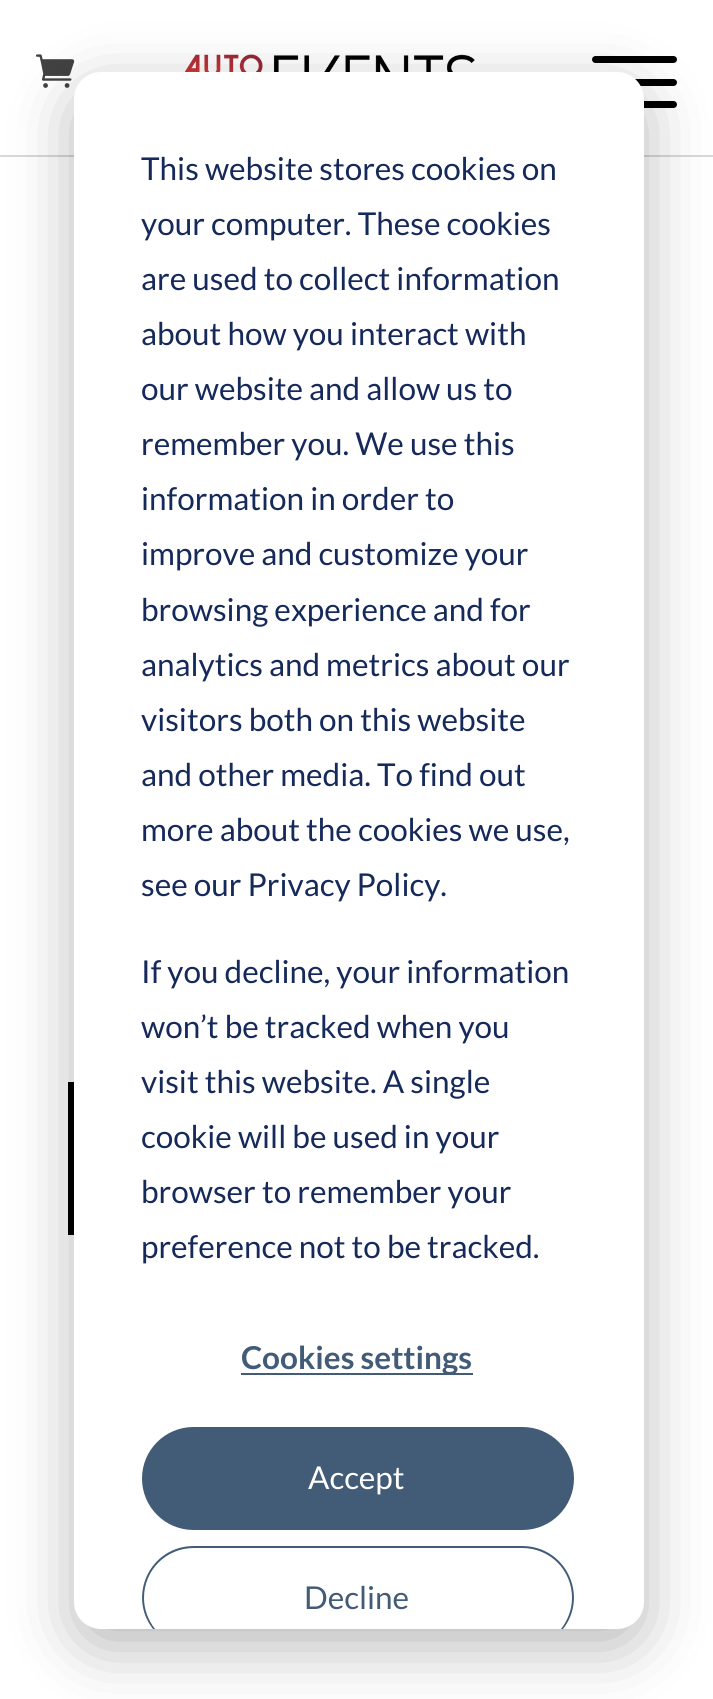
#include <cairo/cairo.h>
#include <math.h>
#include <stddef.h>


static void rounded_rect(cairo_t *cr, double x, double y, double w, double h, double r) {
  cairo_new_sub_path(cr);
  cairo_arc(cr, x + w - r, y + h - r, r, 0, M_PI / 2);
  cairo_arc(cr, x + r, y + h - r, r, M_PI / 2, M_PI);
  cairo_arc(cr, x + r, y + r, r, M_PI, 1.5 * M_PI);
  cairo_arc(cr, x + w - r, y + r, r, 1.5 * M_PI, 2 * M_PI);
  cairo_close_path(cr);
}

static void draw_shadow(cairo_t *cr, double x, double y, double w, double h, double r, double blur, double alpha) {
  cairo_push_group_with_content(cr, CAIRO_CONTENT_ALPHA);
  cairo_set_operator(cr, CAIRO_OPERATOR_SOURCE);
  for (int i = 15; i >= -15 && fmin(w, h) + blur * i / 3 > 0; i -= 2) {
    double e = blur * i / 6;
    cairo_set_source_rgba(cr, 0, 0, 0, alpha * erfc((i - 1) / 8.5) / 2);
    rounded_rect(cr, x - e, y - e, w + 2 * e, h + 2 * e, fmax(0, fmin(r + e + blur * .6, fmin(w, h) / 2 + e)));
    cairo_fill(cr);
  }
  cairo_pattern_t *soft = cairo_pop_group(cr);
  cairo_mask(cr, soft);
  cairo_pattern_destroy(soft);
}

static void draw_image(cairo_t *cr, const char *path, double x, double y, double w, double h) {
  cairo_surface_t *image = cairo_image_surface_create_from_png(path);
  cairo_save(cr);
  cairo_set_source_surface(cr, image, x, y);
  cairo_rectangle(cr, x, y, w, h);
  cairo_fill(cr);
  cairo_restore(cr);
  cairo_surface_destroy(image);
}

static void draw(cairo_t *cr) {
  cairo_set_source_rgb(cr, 1, 1, 1);
  cairo_paint(cr);
  cairo_set_source_rgb(cr, 216 / 255.0, 216 / 255.0, 216 / 255.0);
  cairo_rectangle(cr, 0, 155, 713, 2);
  cairo_fill(cr);
  draw_image(cr, "images/1.png", 35, 54, 40, 34);
  draw_image(cr, "images/2.png", 184, 54, 291, 18);
  cairo_set_source_rgb(cr, 0, 0, 0);
  rounded_rect(cr, 592, 56, 85, 7, 3.5);
  cairo_fill(cr);
  rounded_rect(cr, 592, 79, 85, 7, 3.5);
  cairo_fill(cr);
  rounded_rect(cr, 592, 101, 85, 7, 3.5);
  cairo_fill(cr);
  cairo_rectangle(cr, 72.5, 1086.5, 537, 144);
  cairo_set_line_width(cr, 9);
  cairo_stroke(cr);
  cairo_set_source_rgb(cr, 0, 0, 0);
  draw_shadow(cr, 74, 90, 570, 1557, 27, 31.5, 0.28);
  cairo_set_source_rgb(cr, 1, 1, 1);
  rounded_rect(cr, 74, 72, 570, 1557, 27);
  cairo_fill(cr);
  cairo_set_source_rgb(cr, 66 / 255.0, 91 / 255.0, 118 / 255.0);
  cairo_rectangle(cr, 241, 1373, 232, 2);
  cairo_fill(cr);
  rounded_rect(cr, 143, 1428, 430, 101, 50.5);
  cairo_fill_preserve(cr);
  cairo_set_line_width(cr, 2);
  cairo_stroke(cr);
  cairo_new_path(cr);
  cairo_move_to(cr, 194, 1546);
  cairo_curve_to(cr, 150, 1546, 127, 1596, 153, 1629);
  cairo_line_to(cr, 155, 1629);
  cairo_curve_to(cr, 148, 1620, 144, 1609, 144, 1598);
  cairo_curve_to(cr, 144, 1570, 166, 1548, 194, 1548);
  cairo_line_to(cr, 522, 1548);
  cairo_curve_to(cr, 550, 1548, 572, 1570, 572, 1598);
  cairo_curve_to(cr, 572, 1609, 568, 1620, 561, 1629);
  cairo_line_to(cr, 563, 1629);
  cairo_curve_to(cr, 589, 1596, 566, 1546, 522, 1546);
  cairo_close_path(cr);
  cairo_fill(cr);
  cairo_select_font_face(cr, "Lato", CAIRO_FONT_SLANT_NORMAL, CAIRO_FONT_WEIGHT_NORMAL);
  cairo_set_font_size(cr, 31.5);
  cairo_set_source_rgb(cr, 21 / 255.0, 41 / 255.0, 90 / 255.0);
  cairo_move_to(cr, 141, 180);
  cairo_show_text(cr, "This website stores cookies on");
  cairo_move_to(cr, 141, 235);
  cairo_show_text(cr, "your computer. These cookies");
  cairo_move_to(cr, 141, 290);
  cairo_show_text(cr, "are used to collect information");
  cairo_move_to(cr, 141, 345);
  cairo_show_text(cr, "about how you interact with");
  cairo_move_to(cr, 141, 400);
  cairo_show_text(cr, "our website and allow us to");
  cairo_move_to(cr, 141, 455);
  cairo_show_text(cr, "remember you. We use this");
  cairo_move_to(cr, 141, 510);
  cairo_show_text(cr, "information in order to");
  cairo_move_to(cr, 141, 565);
  cairo_show_text(cr, "improve and customize your");
  cairo_move_to(cr, 141, 621);
  cairo_show_text(cr, "browsing experience and for");
  cairo_move_to(cr, 141, 676);
  cairo_show_text(cr, "analytics and metrics about our");
  cairo_move_to(cr, 141, 731);
  cairo_show_text(cr, "visitors both on this website");
  cairo_move_to(cr, 141, 786);
  cairo_show_text(cr, "and other media. To find out");
  cairo_move_to(cr, 141, 841);
  cairo_show_text(cr, "more about the cookies we use,");
  cairo_move_to(cr, 141, 896);
  cairo_show_text(cr, "see our Privacy Policy.");
  cairo_move_to(cr, 141, 983);
  cairo_show_text(cr, "If you decline, your information");
  cairo_move_to(cr, 141, 1038);
  cairo_show_text(cr, "won’t be tracked when you");
  cairo_move_to(cr, 141, 1093);
  cairo_show_text(cr, "visit this website. A single");
  cairo_move_to(cr, 141, 1148);
  cairo_show_text(cr, "cookie will be used in your");
  cairo_move_to(cr, 141, 1203);
  cairo_show_text(cr, "browser to remember your");
  cairo_move_to(cr, 141, 1258);
  cairo_show_text(cr, "preference not to be tracked.");
  cairo_select_font_face(cr, "Lato", CAIRO_FONT_SLANT_NORMAL, CAIRO_FONT_WEIGHT_BOLD);
  cairo_set_source_rgb(cr, 66 / 255.0, 91 / 255.0, 118 / 255.0);
  cairo_move_to(cr, 241, 1369);
  cairo_show_text(cr, "Cookies settings");
  cairo_select_font_face(cr, "Lato", CAIRO_FONT_SLANT_NORMAL, CAIRO_FONT_WEIGHT_NORMAL);
  cairo_set_source_rgb(cr, 1, 1, 1);
  cairo_move_to(cr, 308, 1489);
  cairo_show_text(cr, "Accept");
  cairo_set_source_rgb(cr, 66 / 255.0, 91 / 255.0, 118 / 255.0);
  cairo_move_to(cr, 304, 1609);
  cairo_show_text(cr, "Decline");
}

int main(void) {
  cairo_surface_t *surface = cairo_image_surface_create(CAIRO_FORMAT_RGB24, 713, 1699);
  cairo_t *cr = cairo_create(surface);
  cairo_font_options_t *options = cairo_font_options_create();
  cairo_font_options_set_hint_metrics(options, CAIRO_HINT_METRICS_OFF);
  cairo_font_options_set_hint_style(options, CAIRO_HINT_STYLE_NONE);
  cairo_set_font_options(cr, options);
  cairo_set_miter_limit(cr, 4);
  draw(cr);
  cairo_surface_write_to_png(surface, "out.png");
  cairo_font_options_destroy(options);
  cairo_destroy(cr);
  cairo_surface_destroy(surface);
  return 0;
}
